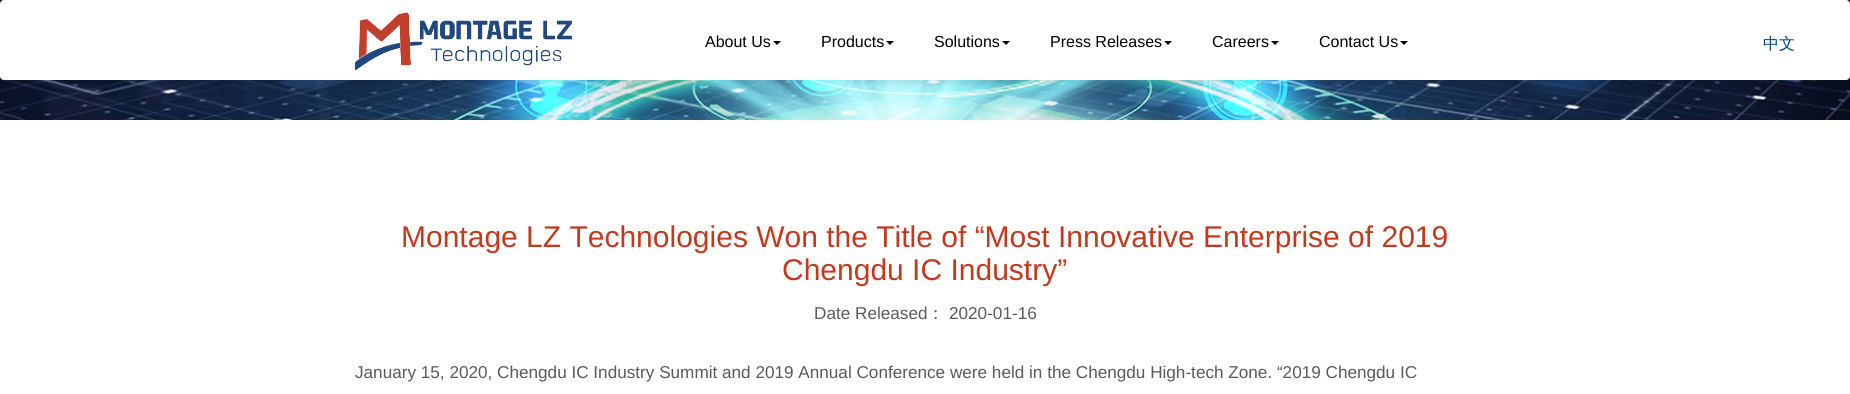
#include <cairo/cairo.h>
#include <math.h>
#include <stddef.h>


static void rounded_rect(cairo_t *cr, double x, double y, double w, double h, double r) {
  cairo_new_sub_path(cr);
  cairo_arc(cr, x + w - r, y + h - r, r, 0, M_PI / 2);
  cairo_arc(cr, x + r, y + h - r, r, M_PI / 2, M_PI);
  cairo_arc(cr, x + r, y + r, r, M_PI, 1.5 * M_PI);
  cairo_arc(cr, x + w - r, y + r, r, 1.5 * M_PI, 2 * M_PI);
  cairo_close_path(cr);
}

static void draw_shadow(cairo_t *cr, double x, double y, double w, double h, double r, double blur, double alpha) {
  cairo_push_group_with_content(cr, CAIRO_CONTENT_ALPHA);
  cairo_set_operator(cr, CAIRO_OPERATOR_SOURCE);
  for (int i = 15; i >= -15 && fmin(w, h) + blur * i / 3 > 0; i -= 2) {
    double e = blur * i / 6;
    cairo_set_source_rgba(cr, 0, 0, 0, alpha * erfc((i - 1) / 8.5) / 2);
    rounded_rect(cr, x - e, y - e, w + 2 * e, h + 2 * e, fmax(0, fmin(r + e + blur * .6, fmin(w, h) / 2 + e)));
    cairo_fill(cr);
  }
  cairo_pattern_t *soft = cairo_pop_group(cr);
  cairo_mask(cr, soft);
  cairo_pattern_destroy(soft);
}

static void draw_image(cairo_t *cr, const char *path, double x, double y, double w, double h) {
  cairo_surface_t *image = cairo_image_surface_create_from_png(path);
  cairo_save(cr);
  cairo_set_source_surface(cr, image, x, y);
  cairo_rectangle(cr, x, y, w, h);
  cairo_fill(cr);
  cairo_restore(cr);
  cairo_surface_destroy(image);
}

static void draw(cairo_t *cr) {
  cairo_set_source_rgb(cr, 1, 1, 1);
  cairo_paint(cr);
  draw_image(cr, "images/2.png", 0, 0, 1850, 120);
  cairo_set_source_rgb(cr, 0, 0, 0);
  draw_shadow(cr, 0, 4, 1850, 80, 4, 1.5, 0.05);
  cairo_set_source_rgb(cr, 1, 1, 1);
  rounded_rect(cr, 0, 0, 1850, 80, 4);
  cairo_fill(cr);
  draw_image(cr, "images/1.png", 355, 12, 217, 58);
  cairo_set_source_rgb(cr, 0, 0, 0);
  cairo_new_path(cr);
  cairo_move_to(cr, 773, 41);
  cairo_line_to(cr, 781, 41);
  cairo_line_to(cr, 777, 45);
  cairo_close_path(cr);
  cairo_fill(cr);
  cairo_new_path(cr);
  cairo_move_to(cr, 886, 41);
  cairo_line_to(cr, 894, 41);
  cairo_line_to(cr, 890, 45);
  cairo_close_path(cr);
  cairo_fill(cr);
  cairo_new_path(cr);
  cairo_move_to(cr, 1002, 41);
  cairo_line_to(cr, 1010, 41);
  cairo_line_to(cr, 1006, 45);
  cairo_close_path(cr);
  cairo_fill(cr);
  cairo_new_path(cr);
  cairo_move_to(cr, 1164, 41);
  cairo_line_to(cr, 1172, 41);
  cairo_line_to(cr, 1168, 45);
  cairo_close_path(cr);
  cairo_fill(cr);
  cairo_new_path(cr);
  cairo_move_to(cr, 1271, 41);
  cairo_line_to(cr, 1279, 41);
  cairo_line_to(cr, 1275, 45);
  cairo_close_path(cr);
  cairo_fill(cr);
  cairo_new_path(cr);
  cairo_move_to(cr, 1400, 41);
  cairo_line_to(cr, 1408, 41);
  cairo_line_to(cr, 1404, 45);
  cairo_close_path(cr);
  cairo_fill(cr);
  cairo_select_font_face(cr, "Liberation Sans", CAIRO_FONT_SLANT_NORMAL, CAIRO_FONT_WEIGHT_NORMAL);
  cairo_set_font_size(cr, 16);
  cairo_move_to(cr, 705, 47);
  cairo_show_text(cr, "About Us");
  cairo_move_to(cr, 821, 47);
  cairo_show_text(cr, "Products");
  cairo_move_to(cr, 934, 47);
  cairo_show_text(cr, "Solutions");
  cairo_move_to(cr, 1050, 47);
  cairo_show_text(cr, "Press Releases");
  cairo_move_to(cr, 1212, 47);
  cairo_show_text(cr, "Careers");
  cairo_move_to(cr, 1319, 47);
  cairo_show_text(cr, "Contact Us");
  cairo_select_font_face(cr, "WenQuanYi Zen Hei Medium", CAIRO_FONT_SLANT_NORMAL, CAIRO_FONT_WEIGHT_NORMAL);
  cairo_set_source_rgb(cr, 0, 61 / 255.0, 121 / 255.0);
  cairo_move_to(cr, 1763, 49);
  cairo_show_text(cr, "中文");
  cairo_select_font_face(cr, "Liberation Sans", CAIRO_FONT_SLANT_NORMAL, CAIRO_FONT_WEIGHT_NORMAL);
  cairo_set_font_size(cr, 30);
  cairo_set_source_rgb(cr, 194 / 255.0, 58 / 255.0, 30 / 255.0);
  cairo_move_to(cr, 401, 247);
  cairo_show_text(cr, "Montage LZ Technologies Won the Title of “Most Innovative Enterprise of 2019");
  cairo_move_to(cr, 782, 280);
  cairo_show_text(cr, "Chengdu IC Industry”");
  cairo_set_font_size(cr, 17.15);
  cairo_set_source_rgb(cr, 90 / 255.0, 90 / 255.0, 90 / 255.0);
  cairo_move_to(cr, 814, 319);
  cairo_show_text(cr, "Date Released");
  cairo_select_font_face(cr, "WenQuanYi Zen Hei Medium", CAIRO_FONT_SLANT_NORMAL, CAIRO_FONT_WEIGHT_NORMAL);
  cairo_move_to(cr, 927, 319);
  cairo_show_text(cr, "：");
  cairo_select_font_face(cr, "Liberation Sans", CAIRO_FONT_SLANT_NORMAL, CAIRO_FONT_WEIGHT_NORMAL);
  cairo_move_to(cr, 949, 319);
  cairo_show_text(cr, "2020-01-16");
  cairo_move_to(cr, 355, 378);
  cairo_show_text(cr, "January 15, 2020, Chengdu IC Industry Summit and 2019 Annual Conference were held in the Chengdu High-tech Zone. “2019 Chengdu IC");
}

int main(void) {
  cairo_surface_t *surface = cairo_image_surface_create(CAIRO_FORMAT_RGB24, 1850, 394);
  cairo_t *cr = cairo_create(surface);
  cairo_font_options_t *options = cairo_font_options_create();
  cairo_font_options_set_hint_metrics(options, CAIRO_HINT_METRICS_OFF);
  cairo_font_options_set_hint_style(options, CAIRO_HINT_STYLE_NONE);
  cairo_set_font_options(cr, options);
  cairo_set_miter_limit(cr, 4);
  draw(cr);
  cairo_surface_write_to_png(surface, "out.png");
  cairo_font_options_destroy(options);
  cairo_destroy(cr);
  cairo_surface_destroy(surface);
  return 0;
}
